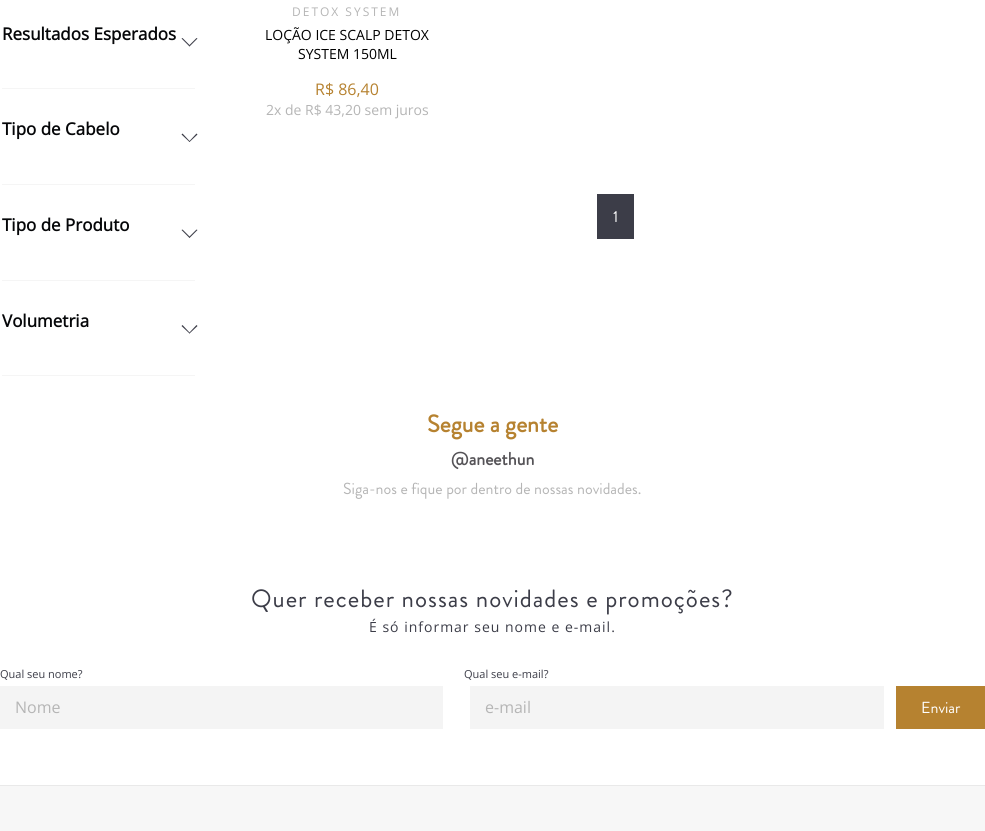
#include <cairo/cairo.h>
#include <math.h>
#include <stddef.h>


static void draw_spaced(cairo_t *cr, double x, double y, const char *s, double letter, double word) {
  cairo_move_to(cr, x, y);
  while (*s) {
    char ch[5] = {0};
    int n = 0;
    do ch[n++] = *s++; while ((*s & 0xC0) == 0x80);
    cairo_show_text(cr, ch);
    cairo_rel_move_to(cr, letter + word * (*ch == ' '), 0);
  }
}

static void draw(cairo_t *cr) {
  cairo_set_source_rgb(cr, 1, 1, 1);
  cairo_paint(cr);
  cairo_set_source_rgb(cr, 245 / 255.0, 245 / 255.0, 245 / 255.0);
  cairo_rectangle(cr, 2, 88, 193, 1);
  cairo_fill(cr);
  cairo_set_source_rgb(cr, 60 / 255.0, 61 / 255.0, 72 / 255.0);
  cairo_new_path(cr);
  cairo_move_to(cr, 189.5, 46.5);
  cairo_line_to(cr, 181.5, 38.5);
  cairo_line_to(cr, 182.5, 38);
  cairo_line_to(cr, 190, 45.5);
  cairo_close_path(cr);
  cairo_fill(cr);
  cairo_new_path(cr);
  cairo_move_to(cr, 189.5, 46.5);
  cairo_line_to(cr, 189, 45.5);
  cairo_line_to(cr, 196.5, 38);
  cairo_line_to(cr, 197.5, 38.5);
  cairo_close_path(cr);
  cairo_fill(cr);
  cairo_set_source_rgb(cr, 245 / 255.0, 245 / 255.0, 245 / 255.0);
  cairo_rectangle(cr, 2, 184, 193, 1);
  cairo_fill(cr);
  cairo_set_source_rgb(cr, 60 / 255.0, 61 / 255.0, 72 / 255.0);
  cairo_new_path(cr);
  cairo_move_to(cr, 189.5, 142);
  cairo_line_to(cr, 181.5, 134.5);
  cairo_line_to(cr, 182.5, 133.5);
  cairo_line_to(cr, 190, 141.5);
  cairo_close_path(cr);
  cairo_fill(cr);
  cairo_new_path(cr);
  cairo_move_to(cr, 189.5, 142);
  cairo_line_to(cr, 189, 141.5);
  cairo_line_to(cr, 196.5, 133.5);
  cairo_line_to(cr, 197.5, 134.5);
  cairo_close_path(cr);
  cairo_fill(cr);
  cairo_set_source_rgb(cr, 245 / 255.0, 245 / 255.0, 245 / 255.0);
  cairo_rectangle(cr, 2, 280, 193, 1);
  cairo_fill(cr);
  cairo_set_source_rgb(cr, 60 / 255.0, 61 / 255.0, 72 / 255.0);
  cairo_new_path(cr);
  cairo_move_to(cr, 189.5, 238);
  cairo_line_to(cr, 181.5, 230);
  cairo_line_to(cr, 182.5, 229.5);
  cairo_line_to(cr, 190, 237);
  cairo_close_path(cr);
  cairo_fill(cr);
  cairo_new_path(cr);
  cairo_move_to(cr, 189.5, 238);
  cairo_line_to(cr, 189, 237);
  cairo_line_to(cr, 196.5, 229.5);
  cairo_line_to(cr, 197.5, 230);
  cairo_close_path(cr);
  cairo_fill(cr);
  cairo_set_source_rgb(cr, 245 / 255.0, 245 / 255.0, 245 / 255.0);
  cairo_rectangle(cr, 2, 375, 193, 1);
  cairo_fill(cr);
  cairo_set_source_rgb(cr, 60 / 255.0, 61 / 255.0, 72 / 255.0);
  cairo_new_path(cr);
  cairo_move_to(cr, 189.5, 333.5);
  cairo_line_to(cr, 181.5, 326);
  cairo_line_to(cr, 182.5, 325);
  cairo_line_to(cr, 190, 333);
  cairo_close_path(cr);
  cairo_fill(cr);
  cairo_new_path(cr);
  cairo_move_to(cr, 189.5, 333.5);
  cairo_line_to(cr, 189, 333);
  cairo_line_to(cr, 196.5, 325);
  cairo_line_to(cr, 197.5, 326);
  cairo_close_path(cr);
  cairo_fill(cr);
  cairo_rectangle(cr, 597, 194, 37, 45);
  cairo_fill(cr);
  cairo_set_source_rgb(cr, 244 / 255.0, 244 / 255.0, 244 / 255.0);
  cairo_rectangle(cr, 0, 686, 443, 43);
  cairo_fill(cr);
  cairo_rectangle(cr, 470, 686, 414, 43);
  cairo_fill(cr);
  cairo_set_source_rgb(cr, 182 / 255.0, 130 / 255.0, 48 / 255.0);
  cairo_rectangle(cr, 896, 686, 89, 43);
  cairo_fill(cr);
  cairo_set_source_rgb(cr, 247 / 255.0, 247 / 255.0, 247 / 255.0);
  cairo_rectangle(cr, 0, 786, 985, 45);
  cairo_fill(cr);
  cairo_set_source_rgb(cr, 233 / 255.0, 233 / 255.0, 233 / 255.0);
  cairo_rectangle(cr, 0, 785, 985, 1);
  cairo_fill(cr);
  cairo_select_font_face(cr, "Open Sans", CAIRO_FONT_SLANT_NORMAL, CAIRO_FONT_WEIGHT_BOLD);
  cairo_set_font_size(cr, 17);
  cairo_set_source_rgb(cr, 5 / 255.0, 6 / 255.0, 8 / 255.0);
  cairo_move_to(cr, 2, 40);
  cairo_show_text(cr, "Resultados Esperados");
  cairo_move_to(cr, 2, 135);
  cairo_show_text(cr, "Tipo de Cabelo");
  cairo_move_to(cr, 2, 231);
  cairo_show_text(cr, "Tipo de Produto");
  cairo_move_to(cr, 2, 327);
  cairo_show_text(cr, "Volumetria");
  cairo_select_font_face(cr, "Open Sans", CAIRO_FONT_SLANT_NORMAL, CAIRO_FONT_WEIGHT_NORMAL);
  cairo_set_font_size(cr, 12);
  cairo_set_source_rgb(cr, 181 / 255.0, 181 / 255.0, 181 / 255.0);
  draw_spaced(cr, 292, 16, "DETOX SYSTEM", 2, 0);
  cairo_set_font_size(cr, 14);
  cairo_set_source_rgb(cr, 0, 0, 0);
  cairo_move_to(cr, 265, 40);
  cairo_show_text(cr, "LOÇÃO ICE SCALP DETOX");
  cairo_move_to(cr, 298, 59);
  cairo_show_text(cr, "SYSTEM 150ML");
  cairo_set_font_size(cr, 16);
  cairo_set_source_rgb(cr, 182 / 255.0, 130 / 255.0, 48 / 255.0);
  cairo_move_to(cr, 315, 95);
  cairo_show_text(cr, "R$ 86,40");
  cairo_set_font_size(cr, 14);
  cairo_set_source_rgb(cr, 181 / 255.0, 181 / 255.0, 181 / 255.0);
  cairo_move_to(cr, 266, 115);
  cairo_show_text(cr, "2x de R$ 43,20 sem juros");
  cairo_select_font_face(cr, "Brandon Grotesque", CAIRO_FONT_SLANT_NORMAL, CAIRO_FONT_WEIGHT_NORMAL);
  cairo_set_font_size(cr, 16);
  cairo_set_source_rgb(cr, 1, 1, 1);
  cairo_move_to(cr, 613, 222);
  cairo_show_text(cr, "1");
  cairo_select_font_face(cr, "Brandon Grotesque", CAIRO_FONT_SLANT_NORMAL, CAIRO_FONT_WEIGHT_BOLD);
  cairo_set_font_size(cr, 24);
  cairo_set_source_rgb(cr, 182 / 255.0, 130 / 255.0, 48 / 255.0);
  cairo_move_to(cr, 427, 432);
  cairo_show_text(cr, "Segue a gente");
  cairo_set_font_size(cr, 18);
  cairo_set_source_rgb(cr, 85 / 255.0, 83 / 255.0, 87 / 255.0);
  cairo_move_to(cr, 451, 465);
  cairo_show_text(cr, "@aneethun");
  cairo_select_font_face(cr, "Brandon Grotesque", CAIRO_FONT_SLANT_NORMAL, CAIRO_FONT_WEIGHT_NORMAL);
  cairo_set_font_size(cr, 16);
  cairo_set_source_rgb(cr, 181 / 255.0, 181 / 255.0, 181 / 255.0);
  cairo_move_to(cr, 343, 494);
  cairo_show_text(cr, "Siga-nos e fique por dentro de nossas novidades.");
  cairo_set_font_size(cr, 25);
  cairo_set_source_rgb(cr, 60 / 255.0, 61 / 255.0, 72 / 255.0);
  draw_spaced(cr, 251, 607, "Quer receber nossas novidades e promoções?", 1, 0);
  cairo_select_font_face(cr, "Open Sans", CAIRO_FONT_SLANT_NORMAL, CAIRO_FONT_WEIGHT_NORMAL);
  cairo_set_font_size(cr, 14);
  draw_spaced(cr, 369, 632, "É só informar seu nome e e-mail.", 1, 0);
  cairo_set_font_size(cr, 11);
  cairo_move_to(cr, 0, 678);
  cairo_show_text(cr, "Qual seu nome?");
  cairo_move_to(cr, 464, 678);
  cairo_show_text(cr, "Qual seu e-mail?");
  cairo_set_font_size(cr, 16);
  cairo_set_source_rgb(cr, 181 / 255.0, 181 / 255.0, 181 / 255.0);
  cairo_move_to(cr, 15, 713);
  cairo_show_text(cr, "Nome");
  cairo_move_to(cr, 485, 713);
  cairo_show_text(cr, "e-mail");
  cairo_select_font_face(cr, "Brandon Grotesque", CAIRO_FONT_SLANT_NORMAL, CAIRO_FONT_WEIGHT_NORMAL);
  cairo_set_source_rgb(cr, 1, 1, 1);
  cairo_move_to(cr, 921, 713);
  cairo_show_text(cr, "Enviar");
}

int main(void) {
  cairo_surface_t *surface = cairo_image_surface_create(CAIRO_FORMAT_RGB24, 985, 831);
  cairo_t *cr = cairo_create(surface);
  cairo_font_options_t *options = cairo_font_options_create();
  cairo_font_options_set_hint_metrics(options, CAIRO_HINT_METRICS_OFF);
  cairo_font_options_set_hint_style(options, CAIRO_HINT_STYLE_NONE);
  cairo_set_font_options(cr, options);
  cairo_set_miter_limit(cr, 4);
  draw(cr);
  cairo_surface_write_to_png(surface, "out.png");
  cairo_font_options_destroy(options);
  cairo_destroy(cr);
  cairo_surface_destroy(surface);
  return 0;
}
